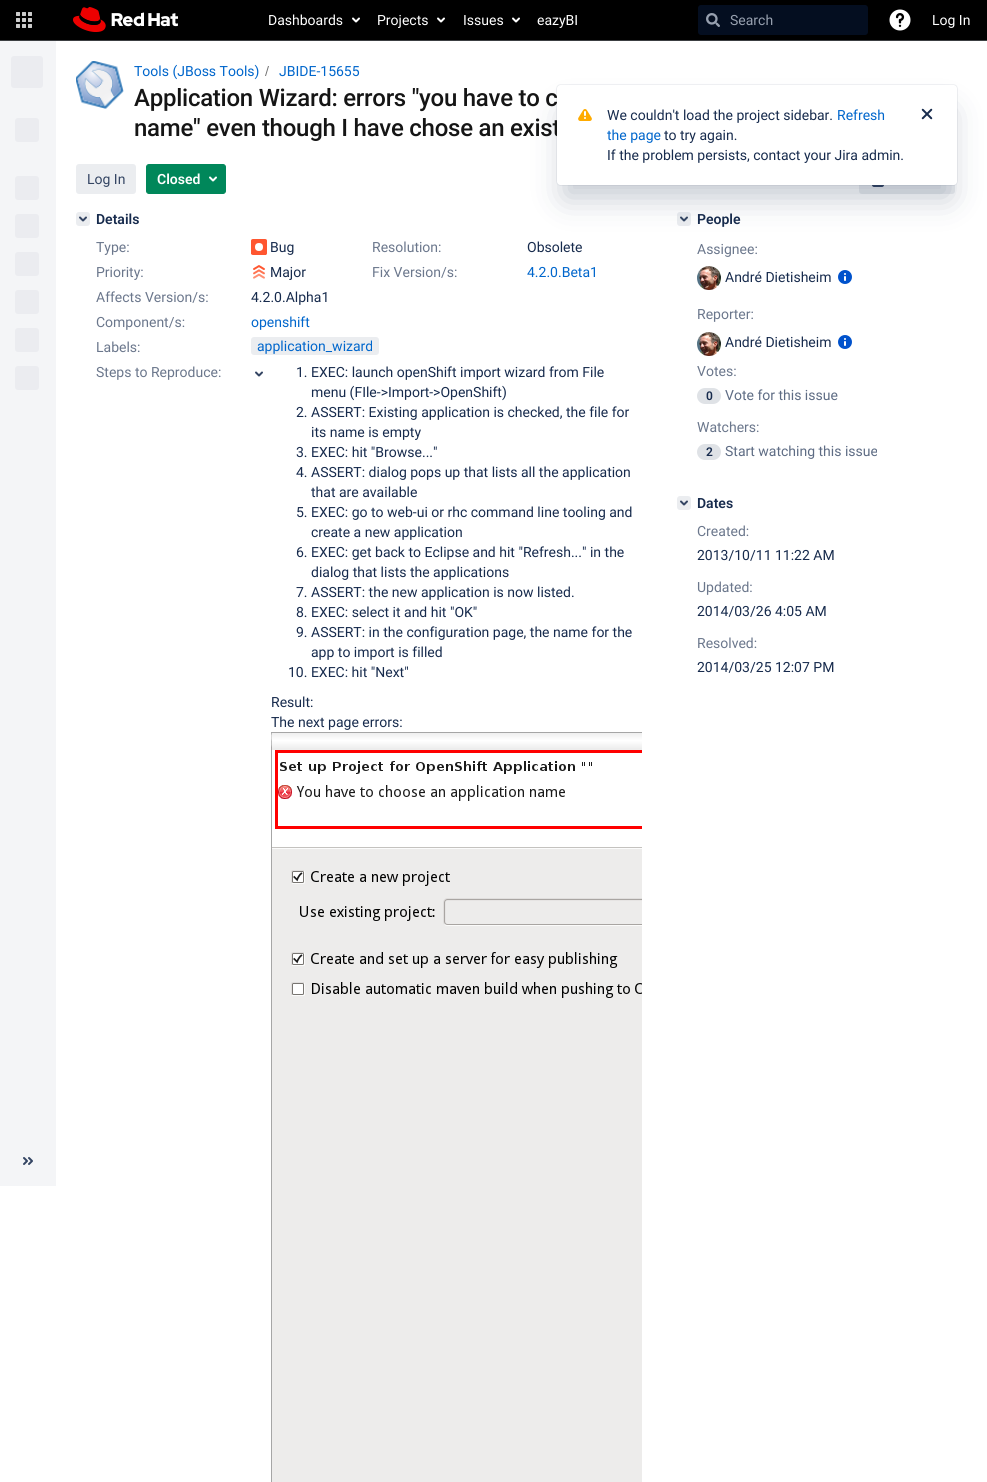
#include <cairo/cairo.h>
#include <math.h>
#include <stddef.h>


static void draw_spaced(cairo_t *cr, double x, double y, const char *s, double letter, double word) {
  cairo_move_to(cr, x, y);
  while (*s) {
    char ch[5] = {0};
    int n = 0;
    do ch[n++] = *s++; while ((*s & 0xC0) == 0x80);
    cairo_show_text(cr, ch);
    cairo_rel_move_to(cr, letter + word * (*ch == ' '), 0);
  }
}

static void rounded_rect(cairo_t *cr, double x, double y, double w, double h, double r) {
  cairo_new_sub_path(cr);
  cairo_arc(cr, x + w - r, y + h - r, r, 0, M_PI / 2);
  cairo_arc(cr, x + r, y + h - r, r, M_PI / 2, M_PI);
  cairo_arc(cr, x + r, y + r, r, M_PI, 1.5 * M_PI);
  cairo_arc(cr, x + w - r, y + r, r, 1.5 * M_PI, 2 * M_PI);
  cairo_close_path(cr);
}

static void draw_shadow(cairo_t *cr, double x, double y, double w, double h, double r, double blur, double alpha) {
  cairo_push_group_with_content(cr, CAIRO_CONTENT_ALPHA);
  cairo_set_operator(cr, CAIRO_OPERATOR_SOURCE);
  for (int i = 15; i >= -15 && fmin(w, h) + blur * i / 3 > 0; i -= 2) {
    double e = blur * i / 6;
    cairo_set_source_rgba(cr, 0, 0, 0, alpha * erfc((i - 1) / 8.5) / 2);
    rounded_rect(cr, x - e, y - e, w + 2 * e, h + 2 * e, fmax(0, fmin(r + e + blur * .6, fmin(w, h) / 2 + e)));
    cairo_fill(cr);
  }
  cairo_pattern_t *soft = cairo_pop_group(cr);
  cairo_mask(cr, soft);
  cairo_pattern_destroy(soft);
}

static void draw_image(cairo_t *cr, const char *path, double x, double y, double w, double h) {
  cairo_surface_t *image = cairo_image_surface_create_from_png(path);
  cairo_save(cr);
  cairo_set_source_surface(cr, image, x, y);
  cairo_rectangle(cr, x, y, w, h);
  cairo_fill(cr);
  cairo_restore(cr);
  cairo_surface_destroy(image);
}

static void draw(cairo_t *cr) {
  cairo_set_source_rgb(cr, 1, 1, 1);
  cairo_paint(cr);
  cairo_set_source_rgb(cr, 0, 0, 0);
  cairo_rectangle(cr, 0, 0, 987, 40);
  cairo_fill(cr);
  cairo_set_source_rgb(cr, 60 / 255.0, 63 / 255.0, 66 / 255.0);
  cairo_rectangle(cr, 0, 40, 987, 1);
  cairo_fill(cr);
  draw_image(cr, "images/1.png", 16, 12, 16, 16);
  draw_image(cr, "images/2.png", 73, 7, 105, 25);
  draw_image(cr, "images/3.png", 352, 17, 8, 6);
  draw_image(cr, "images/3.png", 437, 17, 8, 6);
  draw_image(cr, "images/3.png", 512, 17, 8, 6);
  cairo_set_source_rgb(cr, 4 / 255.0, 14 / 255.0, 32 / 255.0);
  rounded_rect(cr, 698, 5, 170, 30, 3);
  cairo_fill(cr);
  draw_image(cr, "images/4.png", 706, 13, 14, 14);
  draw_image(cr, "images/5.png", 889, 9, 22, 22);
  cairo_set_source_rgb(cr, 244 / 255.0, 245 / 255.0, 247 / 255.0);
  cairo_rectangle(cr, 0, 41, 56, 1145);
  cairo_fill(cr);
  cairo_set_source_rgb(cr, 235 / 255.0, 236 / 255.0, 240 / 255.0);
  rounded_rect(cr, 11, 56, 32, 32, 3);
  cairo_fill(cr);
  rounded_rect(cr, 15, 118, 24, 24, 3);
  cairo_fill(cr);
  rounded_rect(cr, 15, 176, 24, 24, 3);
  cairo_fill(cr);
  rounded_rect(cr, 15, 214, 24, 24, 3);
  cairo_fill(cr);
  rounded_rect(cr, 15, 252, 24, 24, 3);
  cairo_fill(cr);
  rounded_rect(cr, 15, 290, 24, 24, 3);
  cairo_fill(cr);
  rounded_rect(cr, 15, 328, 24, 24, 3);
  cairo_fill(cr);
  rounded_rect(cr, 15, 366, 24, 24, 3);
  cairo_fill(cr);
  draw_image(cr, "images/6.png", 23, 1157, 10, 8);
  draw_image(cr, "images/7.png", 76, 61, 48, 48);
  cairo_set_source_rgb(cr, 112 / 255.0, 112 / 255.0, 112 / 255.0);
  cairo_new_path(cr);
  cairo_move_to(cr, 266, 76);
  cairo_line_to(cr, 269, 66);
  cairo_line_to(cr, 268, 66);
  cairo_line_to(cr, 265, 76);
  cairo_close_path(cr);
  cairo_fill(cr);
  cairo_set_source_rgb(cr, 235 / 255.0, 237 / 255.0, 240 / 255.0);
  rounded_rect(cr, 76, 164, 60, 30, 3);
  cairo_fill(cr);
  cairo_set_source_rgb(cr, 0, 135 / 255.0, 90 / 255.0);
  rounded_rect(cr, 146.5, 164.5, 79, 29, 2.5);
  cairo_fill_preserve(cr);
  cairo_set_line_width(cr, 1);
  cairo_stroke(cr);
  draw_image(cr, "images/8.png", 209, 176, 8, 6);
  cairo_set_source_rgb(cr, 235 / 255.0, 237 / 255.0, 240 / 255.0);
  rounded_rect(cr, 859, 164, 96, 30, 3);
  cairo_fill(cr);
  draw_image(cr, "images/9.png", 872, 185, 12, 2);
  rounded_rect(cr, 76, 212, 14, 14, 3);
  cairo_fill(cr);
  draw_image(cr, "images/10.png", 79, 216, 8, 6);
  draw_image(cr, "images/11.png", 251, 239, 16, 16);
  draw_image(cr, "images/12.png", 253, 265, 12, 14);
  rounded_rect(cr, 251, 337, 128, 18, 3);
  cairo_fill(cr);
  draw_image(cr, "images/13.png", 255, 371, 8, 6);
  draw_image(cr, "images/14.png", 271, 732, 371, 750);
  rounded_rect(cr, 677, 212, 14, 14, 3);
  cairo_fill(cr);
  draw_image(cr, "images/10.png", 680, 216, 8, 6);
  draw_image(cr, "images/15.png", 697, 266, 24, 24);
  draw_image(cr, "images/16.png", 838, 270, 14, 14);
  draw_image(cr, "images/15.png", 697, 332, 24, 24);
  draw_image(cr, "images/16.png", 838, 335, 14, 14);
  cairo_set_source_rgb(cr, 223 / 255.0, 226 / 255.0, 230 / 255.0);
  rounded_rect(cr, 697, 388, 24, 16, 8);
  cairo_fill(cr);
  rounded_rect(cr, 697, 444, 24, 16, 8);
  cairo_fill(cr);
  cairo_set_source_rgb(cr, 235 / 255.0, 237 / 255.0, 240 / 255.0);
  rounded_rect(cr, 677, 496, 14, 14, 3);
  cairo_fill(cr);
  draw_image(cr, "images/10.png", 680, 500, 8, 6);
  cairo_set_source_rgb(cr, 9 / 255.0, 30 / 255.0, 66 / 255.0);
  draw_shadow(cr, 557, 85, 400, 100, 3, 0.5, 0.25);
  draw_shadow(cr, 565, 113, 384, 84, 0, 16, 0.25);
  cairo_select_font_face(cr, "Roboto", CAIRO_FONT_SLANT_NORMAL, CAIRO_FONT_WEIGHT_NORMAL);
  cairo_set_font_size(cr, 14);
  cairo_set_source_rgb(cr, 1, 1, 1);
  cairo_move_to(cr, 268, 25);
  cairo_show_text(cr, "Dashboards");
  cairo_move_to(cr, 377, 25);
  cairo_show_text(cr, "Projects");
  cairo_move_to(cr, 463, 25);
  cairo_show_text(cr, "Issues");
  cairo_move_to(cr, 537, 25);
  cairo_show_text(cr, "eazyBI");
  cairo_set_source_rgb(cr, 151 / 255.0, 160 / 255.0, 175 / 255.0);
  cairo_move_to(cr, 730, 25);
  cairo_show_text(cr, "Search");
  cairo_set_source_rgb(cr, 1, 1, 1);
  cairo_move_to(cr, 932, 25);
  cairo_show_text(cr, "Log In");
  cairo_set_source_rgb(cr, 0, 102 / 255.0, 204 / 255.0);
  cairo_move_to(cr, 134, 76);
  cairo_show_text(cr, "Tools (JBoss Tools)");
  cairo_move_to(cr, 279, 76);
  cairo_show_text(cr, "JBIDE-15655");
  cairo_select_font_face(cr, "Roboto Medium", CAIRO_FONT_SLANT_NORMAL, CAIRO_FONT_WEIGHT_NORMAL);
  cairo_set_font_size(cr, 24);
  cairo_set_source_rgb(cr, 21 / 255.0, 21 / 255.0, 21 / 255.0);
  draw_spaced(cr, 134, 106, "Application Wizard: errors \"you have to c", -0.25, 0);
  draw_spaced(cr, 134, 136, "name\" even though I have chose an exist", -0.25, 0);
  cairo_select_font_face(cr, "Roboto", CAIRO_FONT_SLANT_NORMAL, CAIRO_FONT_WEIGHT_NORMAL);
  cairo_set_font_size(cr, 14);
  cairo_set_source_rgb(cr, 52 / 255.0, 69 / 255.0, 99 / 255.0);
  cairo_move_to(cr, 87, 184);
  cairo_show_text(cr, "Log In");
  cairo_select_font_face(cr, "Roboto SemiBold", CAIRO_FONT_SLANT_NORMAL, CAIRO_FONT_WEIGHT_NORMAL);
  cairo_set_source_rgb(cr, 1, 1, 1);
  cairo_move_to(cr, 157, 184);
  cairo_show_text(cr, "Closed");
  cairo_set_source_rgb(cr, 23 / 255.0, 43 / 255.0, 77 / 255.0);
  cairo_move_to(cr, 96, 224);
  cairo_show_text(cr, "Details");
  cairo_select_font_face(cr, "Roboto", CAIRO_FONT_SLANT_NORMAL, CAIRO_FONT_WEIGHT_NORMAL);
  cairo_set_source_rgb(cr, 107 / 255.0, 119 / 255.0, 140 / 255.0);
  cairo_move_to(cr, 96, 252);
  cairo_show_text(cr, "Type:");
  cairo_set_source_rgb(cr, 23 / 255.0, 43 / 255.0, 77 / 255.0);
  cairo_move_to(cr, 270, 252);
  cairo_show_text(cr, "Bug");
  cairo_set_source_rgb(cr, 107 / 255.0, 119 / 255.0, 140 / 255.0);
  cairo_move_to(cr, 372, 252);
  cairo_show_text(cr, "Resolution:");
  cairo_set_source_rgb(cr, 23 / 255.0, 43 / 255.0, 77 / 255.0);
  cairo_move_to(cr, 527, 252);
  cairo_show_text(cr, "Obsolete");
  cairo_set_source_rgb(cr, 107 / 255.0, 119 / 255.0, 140 / 255.0);
  cairo_move_to(cr, 96, 277);
  cairo_show_text(cr, "Priority:");
  cairo_set_source_rgb(cr, 23 / 255.0, 43 / 255.0, 77 / 255.0);
  cairo_move_to(cr, 270, 277);
  cairo_show_text(cr, "Major");
  cairo_set_source_rgb(cr, 107 / 255.0, 119 / 255.0, 140 / 255.0);
  cairo_move_to(cr, 372, 277);
  cairo_show_text(cr, "Fix Version/s:");
  cairo_set_source_rgb(cr, 0, 102 / 255.0, 204 / 255.0);
  cairo_move_to(cr, 527, 277);
  cairo_show_text(cr, "4.2.0.Beta1");
  cairo_set_source_rgb(cr, 107 / 255.0, 119 / 255.0, 140 / 255.0);
  cairo_move_to(cr, 96, 302);
  cairo_show_text(cr, "Affects Version/s:");
  cairo_set_source_rgb(cr, 23 / 255.0, 43 / 255.0, 77 / 255.0);
  cairo_move_to(cr, 251, 302);
  cairo_show_text(cr, "4.2.0.Alpha1");
  cairo_set_source_rgb(cr, 107 / 255.0, 119 / 255.0, 140 / 255.0);
  cairo_move_to(cr, 96, 327);
  cairo_show_text(cr, "Component/s:");
  cairo_set_source_rgb(cr, 0, 102 / 255.0, 204 / 255.0);
  cairo_move_to(cr, 251, 327);
  cairo_show_text(cr, "openshift");
  cairo_set_source_rgb(cr, 107 / 255.0, 119 / 255.0, 140 / 255.0);
  cairo_move_to(cr, 96, 352);
  cairo_show_text(cr, "Labels:");
  cairo_set_source_rgb(cr, 0, 102 / 255.0, 204 / 255.0);
  cairo_move_to(cr, 257, 351);
  cairo_show_text(cr, "application_wizard");
  cairo_set_source_rgb(cr, 107 / 255.0, 119 / 255.0, 140 / 255.0);
  cairo_move_to(cr, 96, 377);
  cairo_show_text(cr, "Steps to Reproduce:");
  cairo_set_source_rgb(cr, 23 / 255.0, 43 / 255.0, 77 / 255.0);
  cairo_move_to(cr, 296, 377);
  cairo_show_text(cr, "1. EXEC: launch openShift import wizard from File");
  cairo_move_to(cr, 311, 397);
  cairo_show_text(cr, "menu (FIle->Import->OpenShift)");
  cairo_move_to(cr, 296, 417);
  cairo_show_text(cr, "2. ASSERT: Existing application is checked, the file for");
  cairo_move_to(cr, 311, 437);
  cairo_show_text(cr, "its name is empty");
  cairo_move_to(cr, 296, 457);
  cairo_show_text(cr, "3. EXEC: hit \"Browse...\"");
  cairo_move_to(cr, 296, 477);
  cairo_show_text(cr, "4. ASSERT: dialog pops up that lists all the application");
  cairo_move_to(cr, 311, 497);
  cairo_show_text(cr, "that are available");
  cairo_move_to(cr, 296, 517);
  cairo_show_text(cr, "5. EXEC: go to web-ui or rhc command line tooling and");
  cairo_move_to(cr, 311, 537);
  cairo_show_text(cr, "create a new application");
  cairo_move_to(cr, 296, 557);
  cairo_show_text(cr, "6. EXEC: get back to Eclipse and hit \"Refresh...\" in the");
  cairo_move_to(cr, 311, 577);
  cairo_show_text(cr, "dialog that lists the applications");
  cairo_move_to(cr, 296, 597);
  cairo_show_text(cr, "7. ASSERT: the new application is now listed.");
  cairo_move_to(cr, 296, 617);
  cairo_show_text(cr, "8. EXEC: select it and hit \"OK\"");
  cairo_move_to(cr, 296, 637);
  cairo_show_text(cr, "9. ASSERT: in the configuration page, the name for the");
  cairo_move_to(cr, 311, 657);
  cairo_show_text(cr, "app to import is filled");
  cairo_move_to(cr, 288, 677);
  cairo_show_text(cr, "10. EXEC: hit \"Next\"");
  cairo_move_to(cr, 271, 707);
  cairo_show_text(cr, "Result:");
  cairo_move_to(cr, 271, 727);
  cairo_show_text(cr, "The next page errors:");
  cairo_select_font_face(cr, "Roboto SemiBold", CAIRO_FONT_SLANT_NORMAL, CAIRO_FONT_WEIGHT_NORMAL);
  cairo_move_to(cr, 697, 224);
  cairo_show_text(cr, "People");
  cairo_select_font_face(cr, "Roboto", CAIRO_FONT_SLANT_NORMAL, CAIRO_FONT_WEIGHT_NORMAL);
  cairo_set_source_rgb(cr, 107 / 255.0, 119 / 255.0, 140 / 255.0);
  cairo_move_to(cr, 697, 254);
  cairo_show_text(cr, "Assignee:");
  cairo_set_source_rgb(cr, 23 / 255.0, 43 / 255.0, 77 / 255.0);
  cairo_move_to(cr, 725, 282);
  cairo_show_text(cr, "André Dietisheim");
  cairo_set_source_rgb(cr, 107 / 255.0, 119 / 255.0, 140 / 255.0);
  cairo_move_to(cr, 697, 319);
  cairo_show_text(cr, "Reporter:");
  cairo_set_source_rgb(cr, 23 / 255.0, 43 / 255.0, 77 / 255.0);
  cairo_move_to(cr, 725, 347);
  cairo_show_text(cr, "André Dietisheim");
  cairo_set_source_rgb(cr, 107 / 255.0, 119 / 255.0, 140 / 255.0);
  cairo_move_to(cr, 697, 376);
  cairo_show_text(cr, "Votes:");
  cairo_select_font_face(cr, "Roboto SemiBold", CAIRO_FONT_SLANT_NORMAL, CAIRO_FONT_WEIGHT_NORMAL);
  cairo_set_font_size(cr, 12);
  cairo_set_source_rgb(cr, 23 / 255.0, 43 / 255.0, 77 / 255.0);
  cairo_move_to(cr, 706, 400);
  cairo_show_text(cr, "0");
  cairo_select_font_face(cr, "Roboto", CAIRO_FONT_SLANT_NORMAL, CAIRO_FONT_WEIGHT_NORMAL);
  cairo_set_font_size(cr, 14);
  cairo_set_source_rgb(cr, 94 / 255.0, 108 / 255.0, 132 / 255.0);
  cairo_move_to(cr, 725, 400);
  cairo_show_text(cr, "Vote for this issue");
  cairo_set_source_rgb(cr, 107 / 255.0, 119 / 255.0, 140 / 255.0);
  cairo_move_to(cr, 697, 432);
  cairo_show_text(cr, "Watchers:");
  cairo_select_font_face(cr, "Roboto SemiBold", CAIRO_FONT_SLANT_NORMAL, CAIRO_FONT_WEIGHT_NORMAL);
  cairo_set_font_size(cr, 12);
  cairo_set_source_rgb(cr, 23 / 255.0, 43 / 255.0, 77 / 255.0);
  cairo_move_to(cr, 706, 456);
  cairo_show_text(cr, "2");
  cairo_select_font_face(cr, "Roboto", CAIRO_FONT_SLANT_NORMAL, CAIRO_FONT_WEIGHT_NORMAL);
  cairo_set_font_size(cr, 14);
  cairo_set_source_rgb(cr, 94 / 255.0, 108 / 255.0, 132 / 255.0);
  cairo_move_to(cr, 725, 456);
  cairo_show_text(cr, "Start watching this issue");
  cairo_select_font_face(cr, "Roboto SemiBold", CAIRO_FONT_SLANT_NORMAL, CAIRO_FONT_WEIGHT_NORMAL);
  cairo_set_source_rgb(cr, 23 / 255.0, 43 / 255.0, 77 / 255.0);
  cairo_move_to(cr, 697, 508);
  cairo_show_text(cr, "Dates");
  cairo_select_font_face(cr, "Roboto", CAIRO_FONT_SLANT_NORMAL, CAIRO_FONT_WEIGHT_NORMAL);
  cairo_set_source_rgb(cr, 107 / 255.0, 119 / 255.0, 140 / 255.0);
  cairo_move_to(cr, 697, 536);
  cairo_show_text(cr, "Created:");
  cairo_set_source_rgb(cr, 23 / 255.0, 43 / 255.0, 77 / 255.0);
  cairo_move_to(cr, 697, 560);
  cairo_show_text(cr, "2013/10/11 11:22 AM");
  cairo_set_source_rgb(cr, 107 / 255.0, 119 / 255.0, 140 / 255.0);
  cairo_move_to(cr, 697, 592);
  cairo_show_text(cr, "Updated:");
  cairo_set_source_rgb(cr, 23 / 255.0, 43 / 255.0, 77 / 255.0);
  cairo_move_to(cr, 697, 616);
  cairo_show_text(cr, "2014/03/26 4:05 AM");
  cairo_set_source_rgb(cr, 107 / 255.0, 119 / 255.0, 140 / 255.0);
  cairo_move_to(cr, 697, 648);
  cairo_show_text(cr, "Resolved:");
  cairo_set_source_rgb(cr, 23 / 255.0, 43 / 255.0, 77 / 255.0);
  cairo_move_to(cr, 697, 672);
  cairo_show_text(cr, "2014/03/25 12:07 PM");
  cairo_set_source_rgb(cr, 1, 1, 1);
  rounded_rect(cr, 557, 85, 400, 100, 3);
  cairo_fill(cr);
  draw_image(cr, "images/17.png", 578, 109, 14, 12);
  cairo_set_source_rgb(cr, 23 / 255.0, 43 / 255.0, 77 / 255.0);
  cairo_move_to(cr, 607, 120);
  cairo_show_text(cr, "We couldn't load the project sidebar.");
  cairo_set_source_rgb(cr, 0, 102 / 255.0, 204 / 255.0);
  cairo_move_to(cr, 837, 120);
  cairo_show_text(cr, "Refresh");
  draw_image(cr, "images/18.png", 921, 108, 12, 12);
  cairo_move_to(cr, 607, 140);
  cairo_show_text(cr, "the page");
  cairo_set_source_rgb(cr, 23 / 255.0, 43 / 255.0, 77 / 255.0);
  cairo_move_to(cr, 664, 140);
  cairo_show_text(cr, "to try again.");
  cairo_move_to(cr, 607, 160);
  cairo_show_text(cr, "If the problem persists, contact your Jira admin.");
}

int main(void) {
  cairo_surface_t *surface = cairo_image_surface_create(CAIRO_FORMAT_RGB24, 987, 1482);
  cairo_t *cr = cairo_create(surface);
  cairo_font_options_t *options = cairo_font_options_create();
  cairo_font_options_set_hint_metrics(options, CAIRO_HINT_METRICS_OFF);
  cairo_font_options_set_hint_style(options, CAIRO_HINT_STYLE_NONE);
  cairo_set_font_options(cr, options);
  cairo_set_miter_limit(cr, 4);
  draw(cr);
  cairo_surface_write_to_png(surface, "out.png");
  cairo_font_options_destroy(options);
  cairo_destroy(cr);
  cairo_surface_destroy(surface);
  return 0;
}
